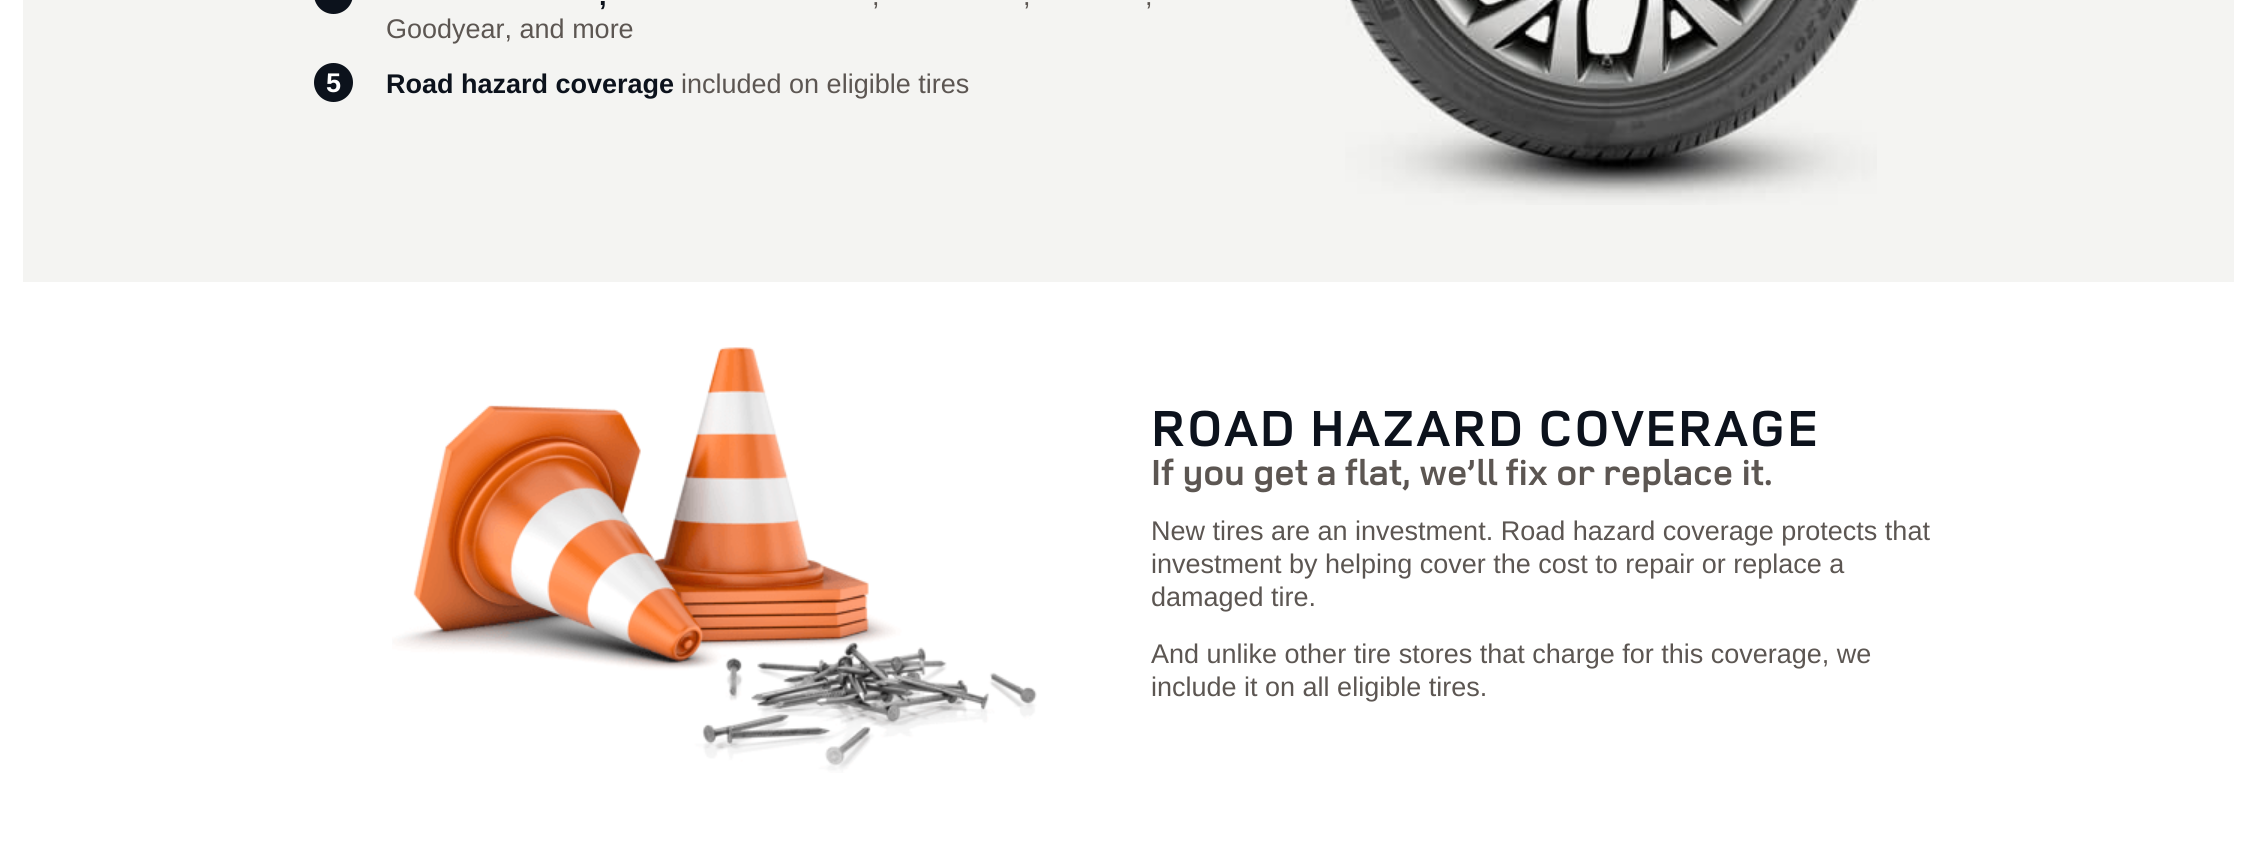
#include <cairo/cairo.h>
#include <math.h>
#include <stddef.h>


static void draw_spaced(cairo_t *cr, double x, double y, const char *s, double letter, double word) {
  cairo_move_to(cr, x, y);
  while (*s) {
    char ch[5] = {0};
    int n = 0;
    do ch[n++] = *s++; while ((*s & 0xC0) == 0x80);
    cairo_show_text(cr, ch);
    cairo_rel_move_to(cr, letter + word * (*ch == ' '), 0);
  }
}

static void rounded_rect(cairo_t *cr, double x, double y, double w, double h, double r) {
  cairo_new_sub_path(cr);
  cairo_arc(cr, x + w - r, y + h - r, r, 0, M_PI / 2);
  cairo_arc(cr, x + r, y + h - r, r, M_PI / 2, M_PI);
  cairo_arc(cr, x + r, y + r, r, M_PI, 1.5 * M_PI);
  cairo_arc(cr, x + w - r, y + r, r, 1.5 * M_PI, 2 * M_PI);
  cairo_close_path(cr);
}

static void draw_image(cairo_t *cr, const char *path, double x, double y, double w, double h) {
  cairo_surface_t *image = cairo_image_surface_create_from_png(path);
  cairo_save(cr);
  cairo_set_source_surface(cr, image, x, y);
  cairo_rectangle(cr, x, y, w, h);
  cairo_fill(cr);
  cairo_restore(cr);
  cairo_surface_destroy(image);
}

static void draw(cairo_t *cr) {
  cairo_set_source_rgb(cr, 1, 1, 1);
  cairo_paint(cr);
  cairo_set_source_rgb(cr, 244 / 255.0, 244 / 255.0, 242 / 255.0);
  cairo_rectangle(cr, 23, 0, 2211, 282);
  cairo_fill(cr);
  cairo_set_source_rgb(cr, 12 / 255.0, 18 / 255.0, 28 / 255.0);
  rounded_rect(cr, 314, -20, 39, 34, 19.5);
  cairo_fill(cr);
  cairo_arc(cr, 333.5, 82.5, 19.5, 0, 2 * M_PI);
  cairo_fill(cr);
  draw_image(cr, "images/1.png", 1345, 0, 532, 205);
  draw_image(cr, "images/2.png", 392, 347, 645, 426);
  cairo_select_font_face(cr, "Liberation Sans", CAIRO_FONT_SLANT_NORMAL, CAIRO_FONT_WEIGHT_BOLD);
  cairo_set_font_size(cr, 27);
  cairo_move_to(cr, 599, 5);
  cairo_show_text(cr, ",");
  cairo_select_font_face(cr, "Liberation Sans", CAIRO_FONT_SLANT_NORMAL, CAIRO_FONT_WEIGHT_NORMAL);
  cairo_set_source_rgb(cr, 92 / 255.0, 86 / 255.0, 82 / 255.0);
  cairo_move_to(cr, 872, 5);
  cairo_show_text(cr, ",");
  cairo_move_to(cr, 1023, 5);
  cairo_show_text(cr, ",");
  cairo_move_to(cr, 1145, 5);
  cairo_show_text(cr, ",");
  cairo_move_to(cr, 386, 38);
  cairo_show_text(cr, "Goodyear, and more");
  cairo_select_font_face(cr, "Liberation Sans", CAIRO_FONT_SLANT_NORMAL, CAIRO_FONT_WEIGHT_BOLD);
  cairo_set_source_rgb(cr, 1, 1, 1);
  cairo_move_to(cr, 326, 92);
  cairo_show_text(cr, "5");
  cairo_set_source_rgb(cr, 12 / 255.0, 18 / 255.0, 28 / 255.0);
  cairo_move_to(cr, 386, 93);
  cairo_show_text(cr, "Road hazard coverage");
  cairo_select_font_face(cr, "Liberation Sans", CAIRO_FONT_SLANT_NORMAL, CAIRO_FONT_WEIGHT_NORMAL);
  cairo_set_source_rgb(cr, 92 / 255.0, 86 / 255.0, 82 / 255.0);
  cairo_move_to(cr, 681, 93);
  cairo_show_text(cr, "included on eligible tires");
  cairo_select_font_face(cr, "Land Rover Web", CAIRO_FONT_SLANT_NORMAL, CAIRO_FONT_WEIGHT_BOLD);
  cairo_set_font_size(cr, 52.5);
  cairo_set_source_rgb(cr, 12 / 255.0, 18 / 255.0, 28 / 255.0);
  draw_spaced(cr, 1151, 446, "ROAD HAZARD COVERAGE", 1.5, 0);
  cairo_set_font_size(cr, 37.5);
  cairo_set_source_rgb(cr, 92 / 255.0, 86 / 255.0, 82 / 255.0);
  cairo_move_to(cr, 1151, 485);
  cairo_show_text(cr, "If you get a flat, we’ll fix or replace it.");
  cairo_select_font_face(cr, "Liberation Sans", CAIRO_FONT_SLANT_NORMAL, CAIRO_FONT_WEIGHT_NORMAL);
  cairo_set_font_size(cr, 27);
  cairo_move_to(cr, 1151, 540);
  cairo_show_text(cr, "New tires are an investment. Road hazard coverage protects that");
  cairo_move_to(cr, 1151, 573);
  cairo_show_text(cr, "investment by helping cover the cost to repair or replace a");
  cairo_move_to(cr, 1151, 606);
  cairo_show_text(cr, "damaged tire.");
  cairo_move_to(cr, 1151, 663);
  cairo_show_text(cr, "And unlike other tire stores that charge for this coverage, we");
  cairo_move_to(cr, 1151, 696);
  cairo_show_text(cr, "include it on all eligible tires.");
}

int main(void) {
  cairo_surface_t *surface = cairo_image_surface_create(CAIRO_FORMAT_RGB24, 2256, 861);
  cairo_t *cr = cairo_create(surface);
  cairo_font_options_t *options = cairo_font_options_create();
  cairo_font_options_set_hint_metrics(options, CAIRO_HINT_METRICS_OFF);
  cairo_font_options_set_hint_style(options, CAIRO_HINT_STYLE_NONE);
  cairo_set_font_options(cr, options);
  cairo_set_miter_limit(cr, 4);
  draw(cr);
  cairo_surface_write_to_png(surface, "out.png");
  cairo_font_options_destroy(options);
  cairo_destroy(cr);
  cairo_surface_destroy(surface);
  return 0;
}
